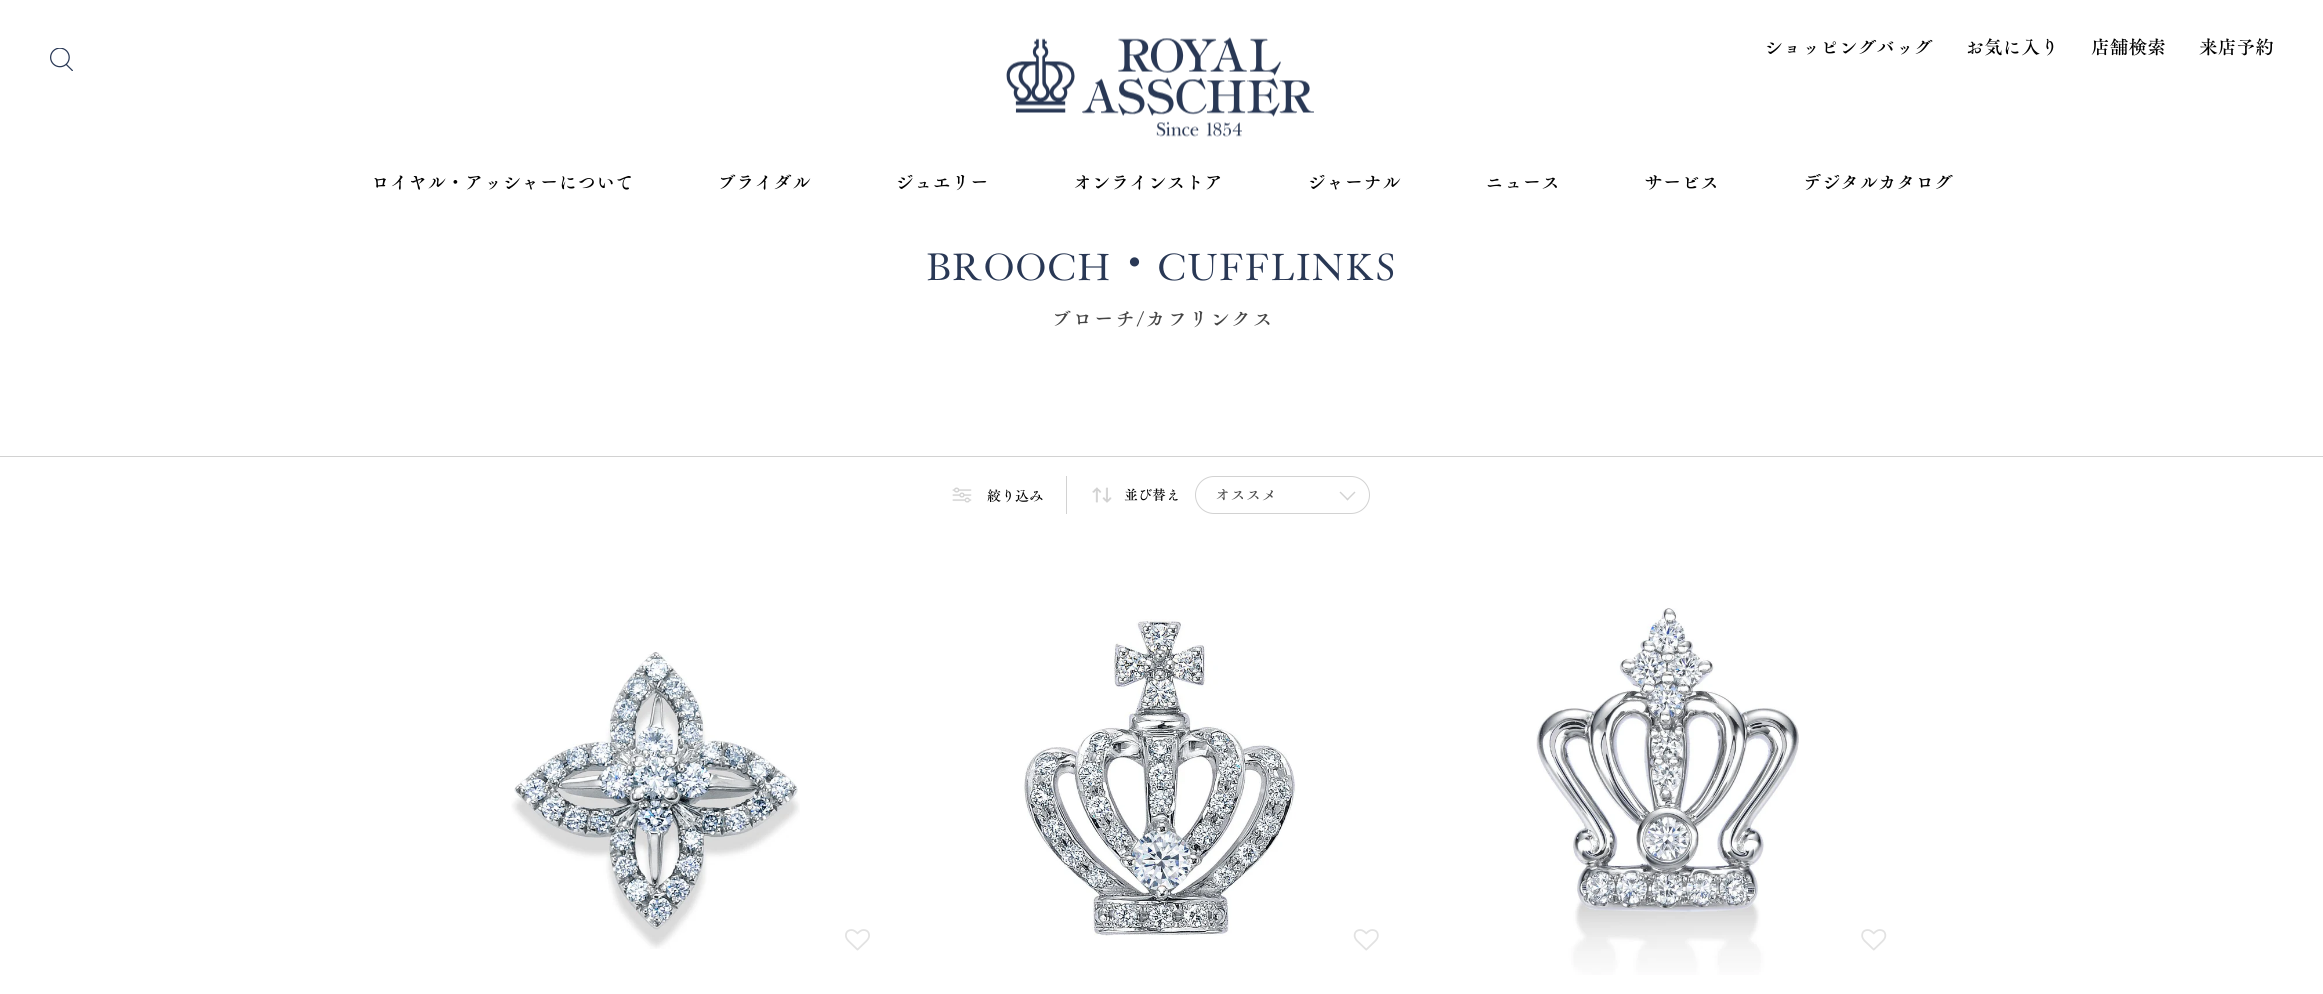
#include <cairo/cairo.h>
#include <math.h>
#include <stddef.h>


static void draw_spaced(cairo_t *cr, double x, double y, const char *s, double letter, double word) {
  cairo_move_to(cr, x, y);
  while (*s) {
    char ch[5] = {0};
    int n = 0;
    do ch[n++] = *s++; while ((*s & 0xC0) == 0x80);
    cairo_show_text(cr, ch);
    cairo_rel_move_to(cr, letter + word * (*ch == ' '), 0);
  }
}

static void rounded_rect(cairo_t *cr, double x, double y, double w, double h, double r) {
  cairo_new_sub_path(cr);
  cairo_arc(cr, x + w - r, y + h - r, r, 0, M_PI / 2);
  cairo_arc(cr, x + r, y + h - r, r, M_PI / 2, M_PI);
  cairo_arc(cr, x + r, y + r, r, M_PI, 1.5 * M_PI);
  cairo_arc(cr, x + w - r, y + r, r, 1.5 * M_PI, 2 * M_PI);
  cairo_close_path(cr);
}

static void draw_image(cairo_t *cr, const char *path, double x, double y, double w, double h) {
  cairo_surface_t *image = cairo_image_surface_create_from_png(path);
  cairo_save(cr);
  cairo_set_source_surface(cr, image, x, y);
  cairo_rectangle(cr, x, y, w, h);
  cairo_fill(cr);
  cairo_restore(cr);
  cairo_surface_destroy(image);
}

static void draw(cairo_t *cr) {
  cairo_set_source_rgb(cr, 1, 1, 1);
  cairo_paint(cr);
  draw_image(cr, "images/1.png", 50, 48, 23, 23);
  draw_image(cr, "images/2.png", 1006, 37, 308, 100);
  draw_image(cr, "images/3.png", 927, 253, 182, 28);
  draw_image(cr, "images/4.png", 1159, 253, 235, 28);
  cairo_set_source_rgb(cr, 210 / 255.0, 210 / 255.0, 210 / 255.0);
  cairo_rectangle(cr, 0, 456, 2323, 1);
  cairo_fill(cr);
  draw_image(cr, "images/5.png", 952, 487, 20, 16);
  cairo_rectangle(cr, 1066, 476, 1, 38);
  cairo_fill(cr);
  draw_image(cr, "images/6.png", 1092, 487, 20, 16);
  rounded_rect(cr, 1195.5, 476.5, 174, 37, 18.5);
  cairo_set_line_width(cr, 1);
  cairo_stroke(cr);
  cairo_new_path(cr);
  cairo_move_to(cr, 1347.5, 500.5);
  cairo_line_to(cr, 1339.5, 492.5);
  cairo_line_to(cr, 1340.5, 491.5);
  cairo_line_to(cr, 1348.5, 499.5);
  cairo_close_path(cr);
  cairo_fill(cr);
  cairo_new_path(cr);
  cairo_move_to(cr, 1347.5, 500.5);
  cairo_line_to(cr, 1346.5, 499.5);
  cairo_line_to(cr, 1354.5, 491.5);
  cairo_line_to(cr, 1355.5, 492.5);
  cairo_close_path(cr);
  cairo_fill(cr);
  draw_image(cr, "images/7.png", 511, 652, 289, 297);
  draw_image(cr, "images/8.png", 845, 929, 25, 22);
  draw_image(cr, "images/9.png", 1023, 619, 273, 317);
  draw_image(cr, "images/10.png", 1353, 929, 26, 22);
  draw_image(cr, "images/11.png", 1536, 608, 263, 367);
  draw_image(cr, "images/12.png", 1861, 929, 26, 22);
  cairo_select_font_face(cr, "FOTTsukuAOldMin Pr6 SemiBold", CAIRO_FONT_SLANT_NORMAL, CAIRO_FONT_WEIGHT_NORMAL);
  cairo_set_font_size(cr, 18.75);
  cairo_set_source_rgb(cr, 0, 0, 0);
  cairo_move_to(cr, 1764, 54);
  cairo_show_text(cr, "ショッピングバッグ");
  cairo_move_to(cr, 1965, 54);
  cairo_show_text(cr, "お気に入り");
  cairo_move_to(cr, 2091, 54);
  cairo_show_text(cr, "店舗検索");
  cairo_move_to(cr, 2199, 54);
  cairo_show_text(cr, "来店予約");
  cairo_move_to(cr, 371, 189);
  cairo_show_text(cr, "ロイヤル・アッシャーについて");
  cairo_move_to(cr, 717, 189);
  cairo_show_text(cr, "ブライダル");
  cairo_move_to(cr, 895, 189);
  cairo_show_text(cr, "ジュエリー");
  cairo_move_to(cr, 1073, 189);
  cairo_show_text(cr, "オンラインストア");
  cairo_move_to(cr, 1307, 189);
  cairo_show_text(cr, "ジャーナル");
  cairo_move_to(cr, 1485, 189);
  cairo_show_text(cr, "ニュース");
  cairo_move_to(cr, 1644, 189);
  cairo_show_text(cr, "サービス");
  cairo_move_to(cr, 1803, 189);
  cairo_show_text(cr, "デジタルカタログ");
  cairo_set_font_size(cr, 45);
  cairo_set_source_rgb(cr, 41 / 255.0, 56 / 255.0, 85 / 255.0);
  draw_spaced(cr, 1112, 279, "・", 1.4, 0);
  cairo_set_font_size(cr, 20);
  cairo_set_source_rgb(cr, 68 / 255.0, 68 / 255.0, 68 / 255.0);
  draw_spaced(cr, 1051, 326, "ブローチ/カフリンクス", 1.4, 0);
  cairo_set_font_size(cr, 14);
  cairo_set_source_rgb(cr, 0, 0, 0);
  cairo_move_to(cr, 987, 501);
  cairo_show_text(cr, "絞り込み");
  cairo_move_to(cr, 1124, 500);
  cairo_show_text(cr, "並び替え");
  cairo_set_font_size(cr, 15);
  cairo_set_source_rgb(cr, 77 / 255.0, 77 / 255.0, 77 / 255.0);
  draw_spaced(cr, 1215, 500, "オススメ", 0.5, 0);
}

int main(void) {
  cairo_surface_t *surface = cairo_image_surface_create(CAIRO_FORMAT_RGB24, 2323, 994);
  cairo_t *cr = cairo_create(surface);
  cairo_font_options_t *options = cairo_font_options_create();
  cairo_font_options_set_hint_metrics(options, CAIRO_HINT_METRICS_OFF);
  cairo_font_options_set_hint_style(options, CAIRO_HINT_STYLE_NONE);
  cairo_set_font_options(cr, options);
  cairo_set_miter_limit(cr, 4);
  draw(cr);
  cairo_surface_write_to_png(surface, "out.png");
  cairo_font_options_destroy(options);
  cairo_destroy(cr);
  cairo_surface_destroy(surface);
  return 0;
}
